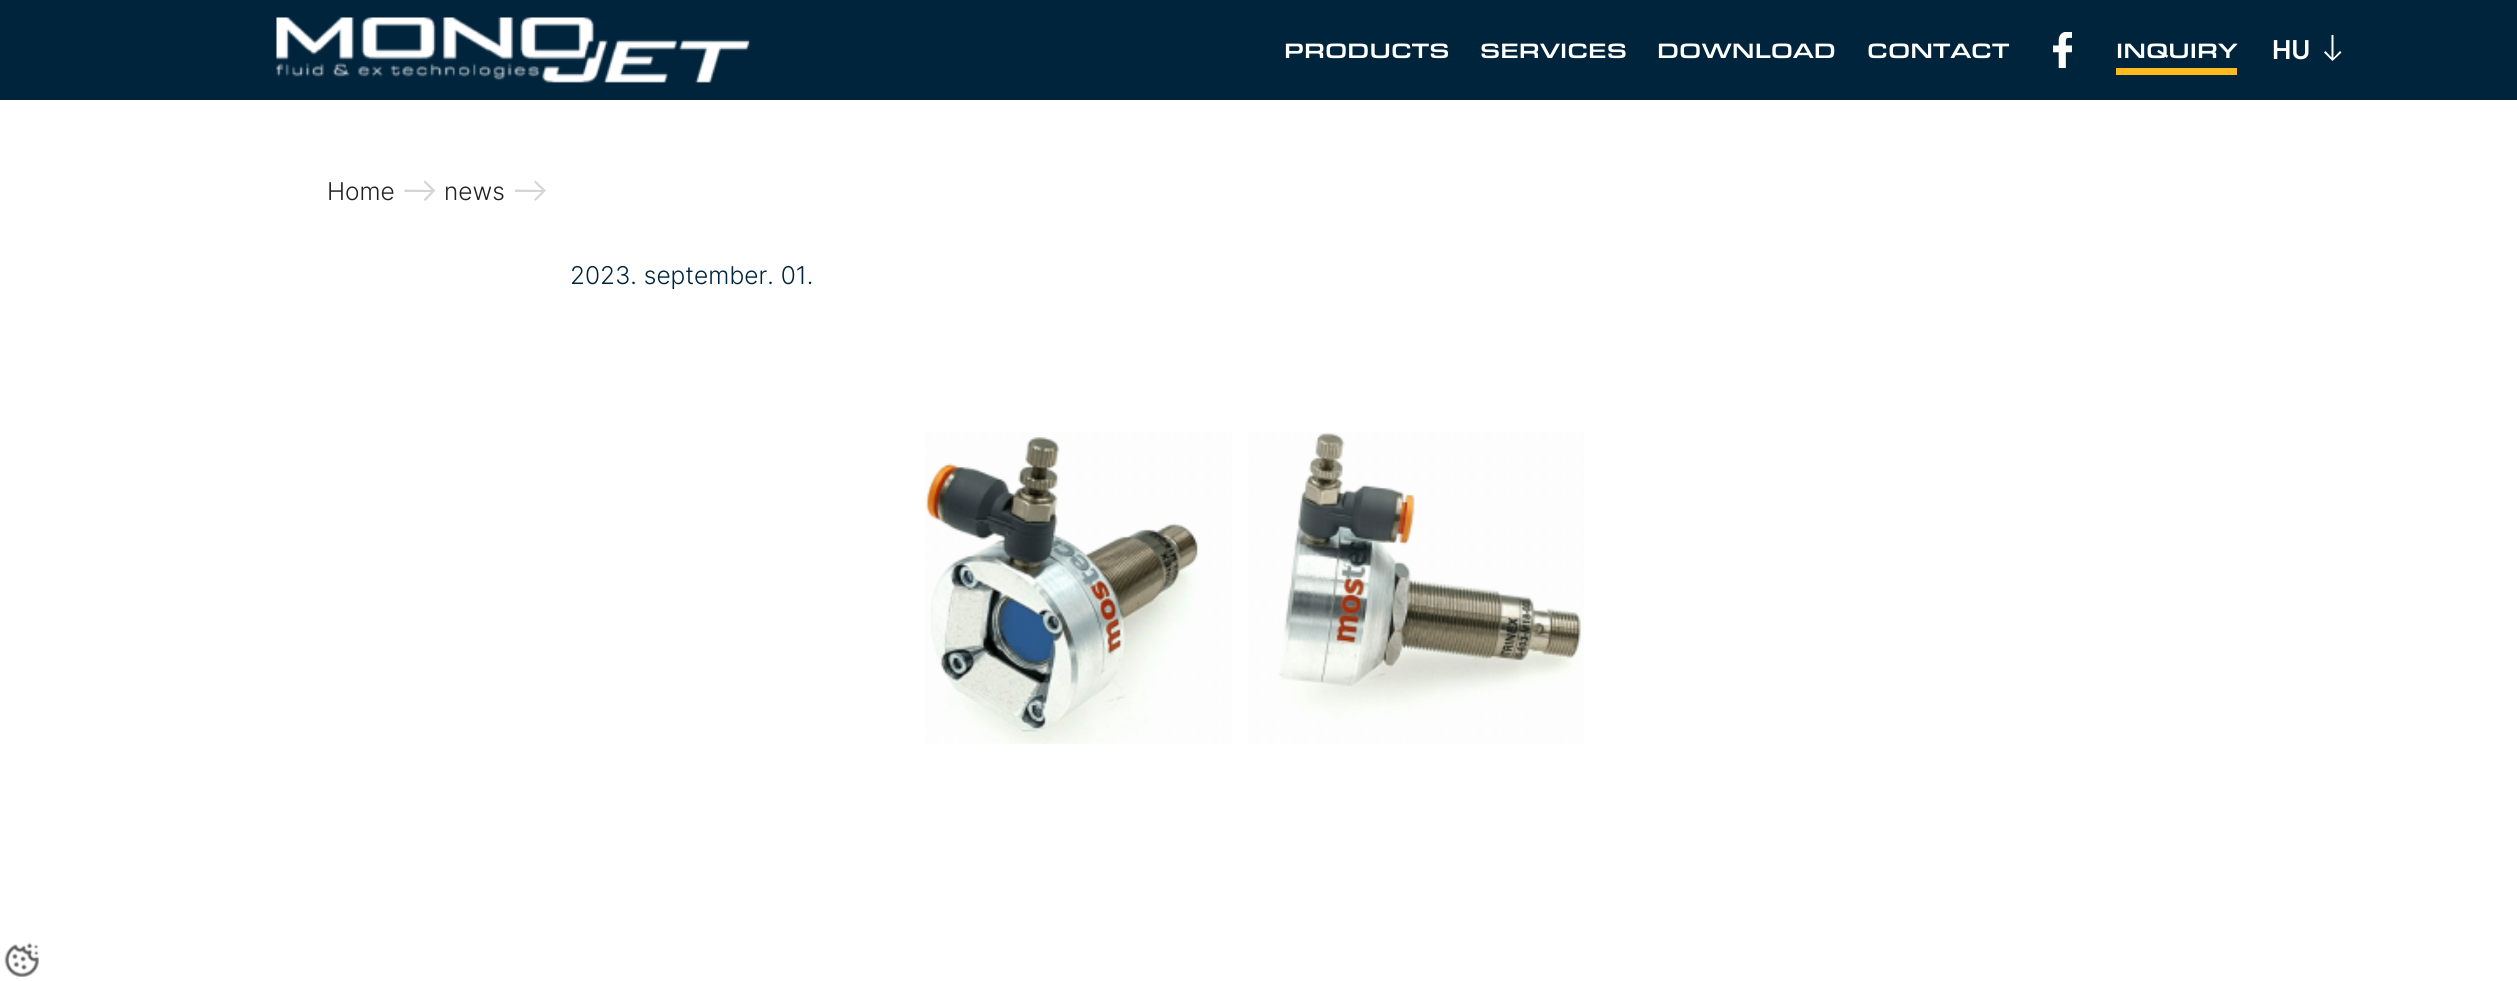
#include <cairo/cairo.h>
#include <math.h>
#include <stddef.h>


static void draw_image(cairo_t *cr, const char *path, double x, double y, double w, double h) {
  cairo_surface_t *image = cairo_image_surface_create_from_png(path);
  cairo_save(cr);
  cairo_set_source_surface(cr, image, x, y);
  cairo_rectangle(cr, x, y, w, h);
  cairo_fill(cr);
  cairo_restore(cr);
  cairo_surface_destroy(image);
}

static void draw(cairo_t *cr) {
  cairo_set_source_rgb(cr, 1, 1, 1);
  cairo_paint(cr);
  cairo_set_source_rgb(cr, 0, 36 / 255.0, 60 / 255.0);
  cairo_rectangle(cr, 0, 0, 2517, 100);
  cairo_fill(cr);
  draw_image(cr, "images/1.png", 276, 17, 474, 66);
  draw_image(cr, "images/2.png", 2053, 32, 19, 36);
  cairo_set_source_rgb(cr, 1, 187 / 255.0, 29 / 255.0);
  cairo_rectangle(cr, 2116, 68, 121, 7);
  cairo_fill(cr);
  cairo_set_source_rgb(cr, 1, 1, 1);
  cairo_set_fill_rule(cr, CAIRO_FILL_RULE_EVEN_ODD);
  cairo_new_path(cr);
  cairo_move_to(cr, 2333.5, 58);
  cairo_line_to(cr, 2333.5, 35);
  cairo_line_to(cr, 2331.5, 35);
  cairo_line_to(cr, 2331.5, 57.5);
  cairo_line_to(cr, 2325.5, 51);
  cairo_line_to(cr, 2324, 52.5);
  cairo_line_to(cr, 2332.5, 61);
  cairo_line_to(cr, 2341.5, 52.5);
  cairo_line_to(cr, 2340, 51);
  cairo_close_path(cr);
  cairo_fill(cr);
  cairo_set_source_rgb(cr, 213 / 255.0, 213 / 255.0, 213 / 255.0);
  cairo_new_path(cr);
  cairo_move_to(cr, 431.5, 190);
  cairo_line_to(cr, 404.5, 189.5);
  cairo_line_to(cr, 404.5, 192);
  cairo_line_to(cr, 431, 192);
  cairo_line_to(cr, 423.5, 199.5);
  cairo_line_to(cr, 425.5, 201);
  cairo_line_to(cr, 435.5, 190.5);
  cairo_line_to(cr, 425, 180.5);
  cairo_line_to(cr, 423.5, 182);
  cairo_close_path(cr);
  cairo_fill(cr);
  cairo_save(cr);
  cairo_set_fill_rule(cr, CAIRO_FILL_RULE_WINDING);
  cairo_rectangle(cr, 515, 180, 31, 21);
  cairo_clip(cr);
  cairo_set_fill_rule(cr, CAIRO_FILL_RULE_EVEN_ODD);
  cairo_new_path(cr);
  cairo_move_to(cr, 542, 190);
  cairo_line_to(cr, 514.5, 189.5);
  cairo_line_to(cr, 514.5, 192);
  cairo_line_to(cr, 541.5, 192);
  cairo_line_to(cr, 534, 199.5);
  cairo_line_to(cr, 535.5, 201);
  cairo_line_to(cr, 546, 190.5);
  cairo_line_to(cr, 535.5, 180.5);
  cairo_line_to(cr, 534, 182);
  cairo_close_path(cr);
  cairo_fill(cr);
  cairo_restore(cr);
  draw_image(cr, "images/3.png", 925, 432, 659, 312);
  draw_image(cr, "images/4.png", 4, 942, 35, 35);
  cairo_select_font_face(cr, "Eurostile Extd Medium", CAIRO_FONT_SLANT_NORMAL, CAIRO_FONT_WEIGHT_NORMAL);
  cairo_set_font_size(cr, 21.5);
  cairo_set_source_rgb(cr, 1, 1, 1);
  cairo_move_to(cr, 1284, 58);
  cairo_show_text(cr, "PRODUCTS");
  cairo_move_to(cr, 1480, 58);
  cairo_show_text(cr, "SERVICES");
  cairo_move_to(cr, 1657, 58);
  cairo_show_text(cr, "DOWNLOAD");
  cairo_move_to(cr, 1867, 58);
  cairo_show_text(cr, "CONTACT");
  cairo_move_to(cr, 2116, 58);
  cairo_show_text(cr, "INQUIRY");
  cairo_select_font_face(cr, "Inter SemiBold", CAIRO_FONT_SLANT_NORMAL, CAIRO_FONT_WEIGHT_NORMAL);
  cairo_set_font_size(cr, 26);
  cairo_move_to(cr, 2272, 59);
  cairo_show_text(cr, "HU");
  cairo_select_font_face(cr, "Inter Light", CAIRO_FONT_SLANT_NORMAL, CAIRO_FONT_WEIGHT_NORMAL);
  cairo_set_font_size(cr, 24.5);
  cairo_set_source_rgb(cr, 34 / 255.0, 34 / 255.0, 34 / 255.0);
  cairo_move_to(cr, 327, 200);
  cairo_show_text(cr, "Home");
  cairo_move_to(cr, 444, 200);
  cairo_show_text(cr, "news");
  cairo_set_source_rgb(cr, 0, 36 / 255.0, 59 / 255.0);
  cairo_move_to(cr, 570, 284);
  cairo_show_text(cr, "2023. september. 01.");
}

int main(void) {
  cairo_surface_t *surface = cairo_image_surface_create(CAIRO_FORMAT_RGB24, 2517, 981);
  cairo_t *cr = cairo_create(surface);
  cairo_font_options_t *options = cairo_font_options_create();
  cairo_font_options_set_hint_metrics(options, CAIRO_HINT_METRICS_OFF);
  cairo_font_options_set_hint_style(options, CAIRO_HINT_STYLE_NONE);
  cairo_set_font_options(cr, options);
  cairo_set_miter_limit(cr, 4);
  draw(cr);
  cairo_surface_write_to_png(surface, "out.png");
  cairo_font_options_destroy(options);
  cairo_destroy(cr);
  cairo_surface_destroy(surface);
  return 0;
}
